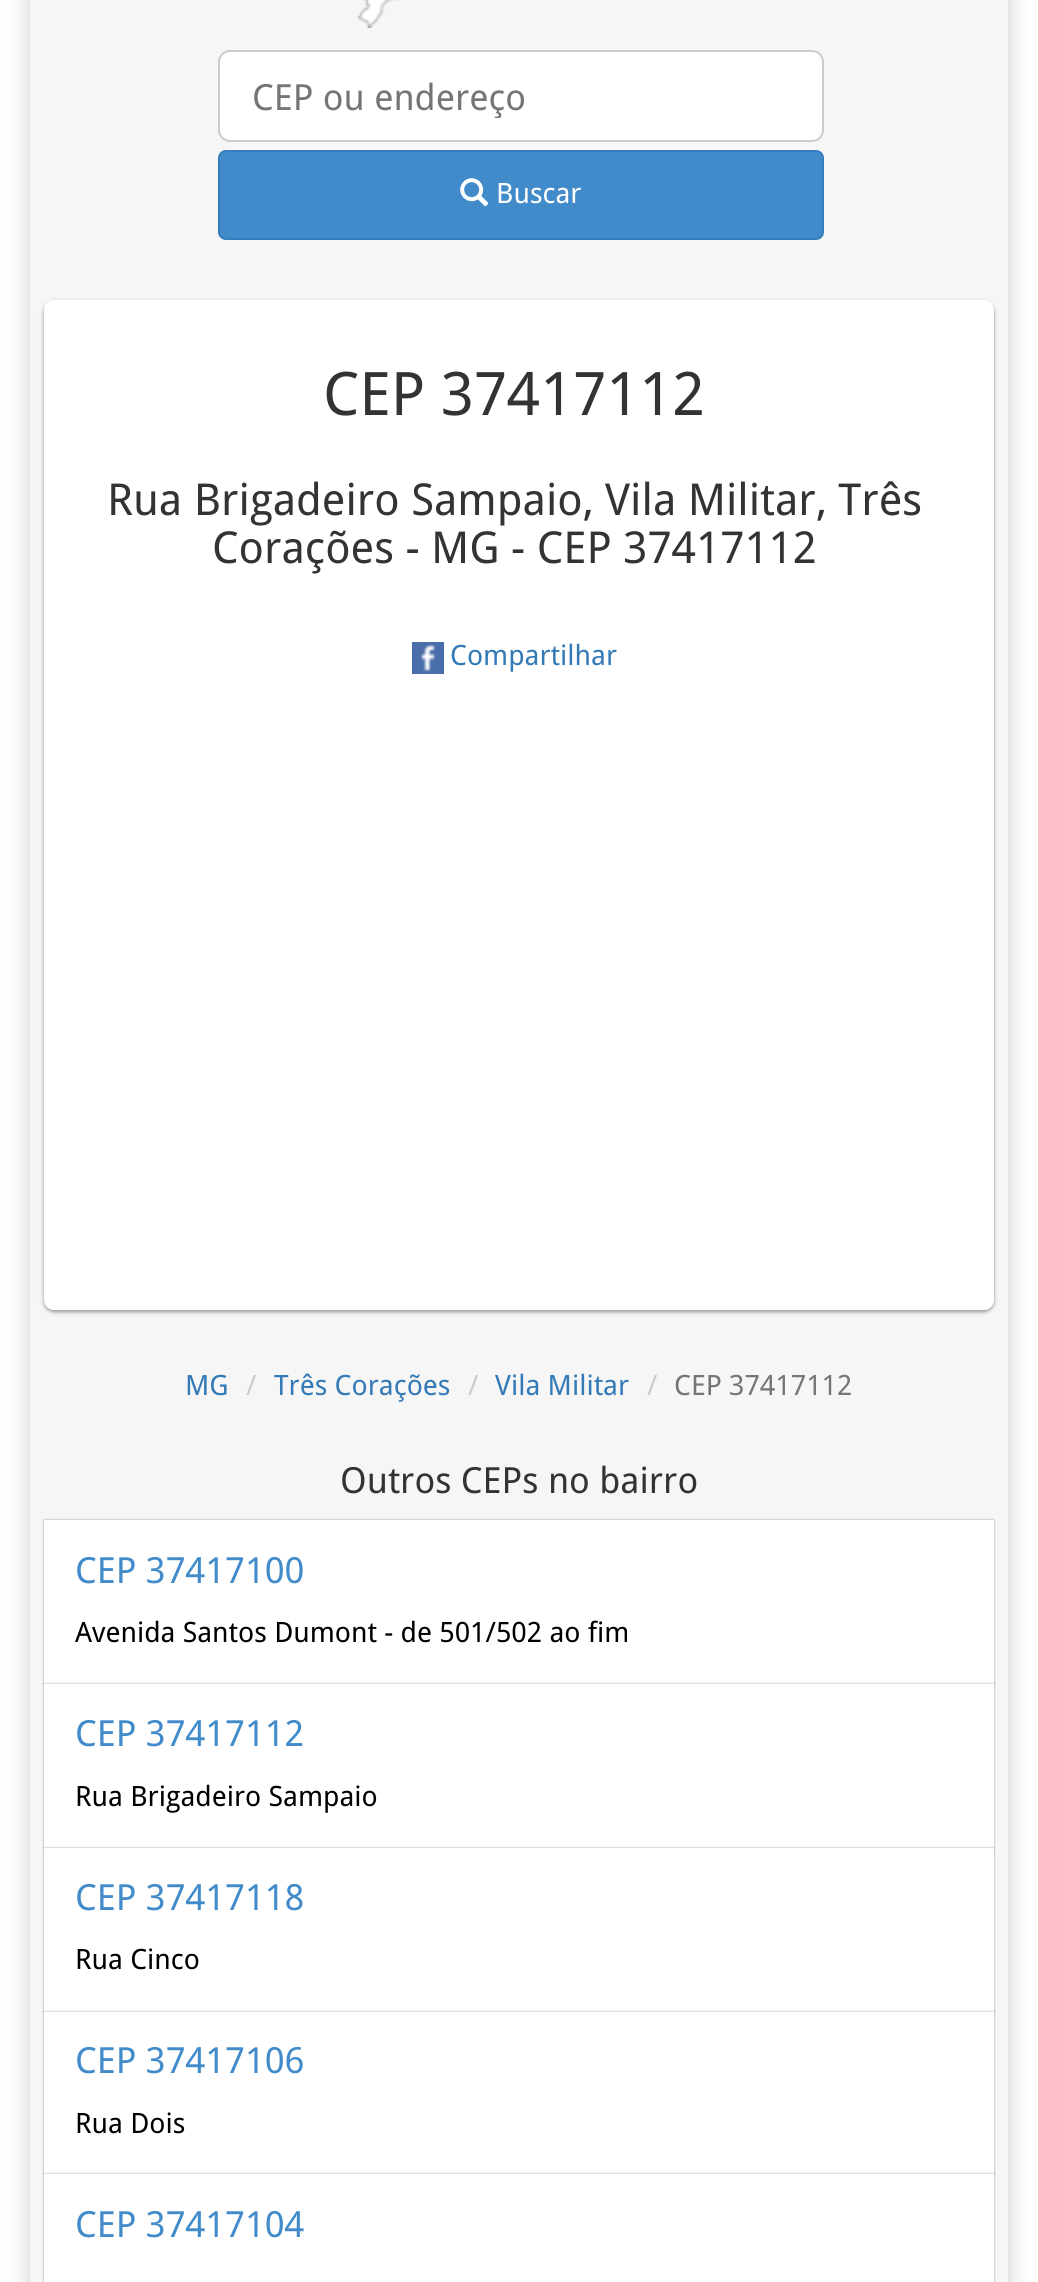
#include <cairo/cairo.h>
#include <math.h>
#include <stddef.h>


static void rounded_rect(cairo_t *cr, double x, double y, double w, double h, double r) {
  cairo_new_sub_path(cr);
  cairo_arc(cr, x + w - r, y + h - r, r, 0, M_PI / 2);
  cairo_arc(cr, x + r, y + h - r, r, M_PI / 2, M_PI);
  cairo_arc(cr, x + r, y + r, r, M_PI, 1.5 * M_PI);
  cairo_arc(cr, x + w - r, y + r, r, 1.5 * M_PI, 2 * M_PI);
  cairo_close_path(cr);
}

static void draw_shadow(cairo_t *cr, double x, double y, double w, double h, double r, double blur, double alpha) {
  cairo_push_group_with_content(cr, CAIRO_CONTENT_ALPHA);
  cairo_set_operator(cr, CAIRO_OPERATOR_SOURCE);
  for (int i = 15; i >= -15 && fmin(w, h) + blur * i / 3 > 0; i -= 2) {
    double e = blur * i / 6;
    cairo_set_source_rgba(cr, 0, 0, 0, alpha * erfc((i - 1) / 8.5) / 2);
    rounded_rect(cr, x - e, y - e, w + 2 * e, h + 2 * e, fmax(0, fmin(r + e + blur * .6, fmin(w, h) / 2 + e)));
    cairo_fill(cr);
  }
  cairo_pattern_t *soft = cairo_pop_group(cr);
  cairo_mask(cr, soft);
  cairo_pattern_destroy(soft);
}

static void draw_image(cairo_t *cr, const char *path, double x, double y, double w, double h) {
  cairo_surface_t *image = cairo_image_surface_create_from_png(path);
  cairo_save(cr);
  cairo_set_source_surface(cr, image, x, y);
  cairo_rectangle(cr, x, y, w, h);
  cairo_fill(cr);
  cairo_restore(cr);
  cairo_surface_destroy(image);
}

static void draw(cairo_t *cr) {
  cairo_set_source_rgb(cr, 1, 1, 1);
  cairo_paint(cr);
  cairo_set_source_rgb(cr, 186 / 255.0, 186 / 255.0, 186 / 255.0);
  draw_shadow(cr, 30, -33, 978, 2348, 0, 11, 0.75);
  cairo_set_source_rgb(cr, 246 / 255.0, 246 / 255.0, 246 / 255.0);
  cairo_rectangle(cr, 30, 0, 978, 2282);
  cairo_fill(cr);
  draw_image(cr, "images/1.png", 357, 0, 42, 28);
  cairo_set_source_rgb(cr, 1, 1, 1);
  rounded_rect(cr, 219, 51, 604, 90, 11);
  cairo_fill_preserve(cr);
  cairo_set_source_rgb(cr, 204 / 255.0, 204 / 255.0, 204 / 255.0);
  cairo_stroke(cr);
  cairo_set_source_rgb(cr, 66 / 255.0, 139 / 255.0, 202 / 255.0);
  rounded_rect(cr, 219, 151, 604, 88, 7);
  cairo_fill_preserve(cr);
  cairo_set_source_rgb(cr, 53 / 255.0, 126 / 255.0, 189 / 255.0);
  cairo_stroke(cr);
  draw_image(cr, "images/2.png", 460, 178, 29, 29);
  cairo_set_source_rgb(cr, 0, 0, 0);
  draw_shadow(cr, 44, 302, 950, 1010, 10, 2, 0.4);
  cairo_set_source_rgb(cr, 1, 1, 1);
  rounded_rect(cr, 44, 300, 950, 1010, 10);
  cairo_fill(cr);
  draw_image(cr, "images/3.png", 412, 642, 32, 32);
  cairo_set_source_rgb(cr, 0, 0, 0);
  draw_shadow(cr, 44, 1520, 950, 164, 0, 1, 0.4);
  cairo_set_source_rgb(cr, 1, 1, 1);
  cairo_rectangle(cr, 44, 1520, 950, 164);
  cairo_fill(cr);
  cairo_set_source_rgb(cr, 0, 0, 0);
  draw_shadow(cr, 44, 1684, 950, 164, 0, 1, 0.4);
  cairo_set_source_rgb(cr, 1, 1, 1);
  cairo_rectangle(cr, 44, 1684, 950, 164);
  cairo_fill(cr);
  cairo_set_source_rgb(cr, 0, 0, 0);
  draw_shadow(cr, 44, 1848, 950, 164, 0, 1, 0.4);
  cairo_set_source_rgb(cr, 1, 1, 1);
  cairo_rectangle(cr, 44, 1848, 950, 164);
  cairo_fill(cr);
  cairo_set_source_rgb(cr, 0, 0, 0);
  draw_shadow(cr, 44, 2012, 950, 162, 0, 1, 0.4);
  cairo_set_source_rgb(cr, 1, 1, 1);
  cairo_rectangle(cr, 44, 2012, 950, 162);
  cairo_fill(cr);
  cairo_set_source_rgb(cr, 0, 0, 0);
  draw_shadow(cr, 44, 2174, 950, 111, 0, 1, 0.4);
  cairo_set_source_rgb(cr, 1, 1, 1);
  cairo_rectangle(cr, 44, 2174, 950, 108);
  cairo_fill(cr);
  cairo_save(cr);
  cairo_rectangle(cr, 252, 76, 530, 42);
  cairo_clip(cr);
  cairo_select_font_face(cr, "Droid Sans", CAIRO_FONT_SLANT_NORMAL, CAIRO_FONT_WEIGHT_NORMAL);
  cairo_set_font_size(cr, 36);
  cairo_set_source_rgb(cr, 117 / 255.0, 117 / 255.0, 117 / 255.0);
  cairo_move_to(cr, 252, 110);
  cairo_show_text(cr, "CEP ou endereço");
  cairo_restore(cr);
  cairo_select_font_face(cr, "Droid Sans", CAIRO_FONT_SLANT_NORMAL, CAIRO_FONT_WEIGHT_NORMAL);
  cairo_set_font_size(cr, 28);
  cairo_move_to(cr, 496, 203);
  cairo_show_text(cr, "Buscar");
  cairo_set_font_size(cr, 60);
  cairo_set_source_rgb(cr, 51 / 255.0, 51 / 255.0, 51 / 255.0);
  cairo_move_to(cr, 323, 415);
  cairo_show_text(cr, "CEP 37417112");
  cairo_set_font_size(cr, 44);
  cairo_move_to(cr, 107, 515);
  cairo_show_text(cr, "Rua Brigadeiro Sampaio, Vila Militar, Três");
  cairo_move_to(cr, 212, 563);
  cairo_show_text(cr, "Corações - MG - CEP 37417112");
  cairo_set_font_size(cr, 28);
  cairo_set_source_rgb(cr, 51 / 255.0, 122 / 255.0, 183 / 255.0);
  cairo_move_to(cr, 450, 665);
  cairo_show_text(cr, "Compartilhar");
  cairo_move_to(cr, 185, 1395);
  cairo_show_text(cr, "MG");
  cairo_set_source_rgb(cr, 204 / 255.0, 204 / 255.0, 204 / 255.0);
  cairo_move_to(cr, 246, 1395);
  cairo_show_text(cr, "/");
  cairo_set_source_rgb(cr, 51 / 255.0, 122 / 255.0, 183 / 255.0);
  cairo_move_to(cr, 274, 1395);
  cairo_show_text(cr, "Três Corações");
  cairo_set_source_rgb(cr, 204 / 255.0, 204 / 255.0, 204 / 255.0);
  cairo_move_to(cr, 468, 1395);
  cairo_show_text(cr, "/");
  cairo_set_source_rgb(cr, 51 / 255.0, 122 / 255.0, 183 / 255.0);
  cairo_move_to(cr, 495, 1395);
  cairo_show_text(cr, "Vila Militar");
  cairo_set_source_rgb(cr, 204 / 255.0, 204 / 255.0, 204 / 255.0);
  cairo_move_to(cr, 647, 1395);
  cairo_show_text(cr, "/");
  cairo_set_source_rgb(cr, 117 / 255.0, 117 / 255.0, 117 / 255.0);
  cairo_move_to(cr, 674, 1395);
  cairo_show_text(cr, "CEP 37417112");
  cairo_set_font_size(cr, 36);
  cairo_set_source_rgb(cr, 51 / 255.0, 51 / 255.0, 51 / 255.0);
  cairo_move_to(cr, 340, 1493);
  cairo_show_text(cr, "Outros CEPs no bairro");
  cairo_set_source_rgb(cr, 66 / 255.0, 139 / 255.0, 202 / 255.0);
  cairo_move_to(cr, 75, 1583);
  cairo_show_text(cr, "CEP 37417100");
  cairo_set_font_size(cr, 28);
  cairo_set_source_rgb(cr, 0, 0, 0);
  cairo_move_to(cr, 75, 1642);
  cairo_show_text(cr, "Avenida Santos Dumont - de 501/502 ao fim");
  cairo_set_font_size(cr, 36);
  cairo_set_source_rgb(cr, 66 / 255.0, 139 / 255.0, 202 / 255.0);
  cairo_move_to(cr, 75, 1746);
  cairo_show_text(cr, "CEP 37417112");
  cairo_set_font_size(cr, 28);
  cairo_set_source_rgb(cr, 0, 0, 0);
  cairo_move_to(cr, 75, 1806);
  cairo_show_text(cr, "Rua Brigadeiro Sampaio");
  cairo_set_font_size(cr, 36);
  cairo_set_source_rgb(cr, 66 / 255.0, 139 / 255.0, 202 / 255.0);
  cairo_move_to(cr, 75, 1910);
  cairo_show_text(cr, "CEP 37417118");
  cairo_set_font_size(cr, 28);
  cairo_set_source_rgb(cr, 0, 0, 0);
  cairo_move_to(cr, 75, 1969);
  cairo_show_text(cr, "Rua Cinco");
  cairo_set_font_size(cr, 36);
  cairo_set_source_rgb(cr, 66 / 255.0, 139 / 255.0, 202 / 255.0);
  cairo_move_to(cr, 75, 2073);
  cairo_show_text(cr, "CEP 37417106");
  cairo_set_font_size(cr, 28);
  cairo_set_source_rgb(cr, 0, 0, 0);
  cairo_move_to(cr, 75, 2133);
  cairo_show_text(cr, "Rua Dois");
  cairo_set_font_size(cr, 36);
  cairo_set_source_rgb(cr, 66 / 255.0, 139 / 255.0, 202 / 255.0);
  cairo_move_to(cr, 75, 2237);
  cairo_show_text(cr, "CEP 37417104");
}

int main(void) {
  cairo_surface_t *surface = cairo_image_surface_create(CAIRO_FORMAT_RGB24, 1038, 2282);
  cairo_t *cr = cairo_create(surface);
  cairo_font_options_t *options = cairo_font_options_create();
  cairo_font_options_set_hint_metrics(options, CAIRO_HINT_METRICS_OFF);
  cairo_font_options_set_hint_style(options, CAIRO_HINT_STYLE_NONE);
  cairo_set_font_options(cr, options);
  cairo_set_miter_limit(cr, 4);
  draw(cr);
  cairo_surface_write_to_png(surface, "out.png");
  cairo_font_options_destroy(options);
  cairo_destroy(cr);
  cairo_surface_destroy(surface);
  return 0;
}
